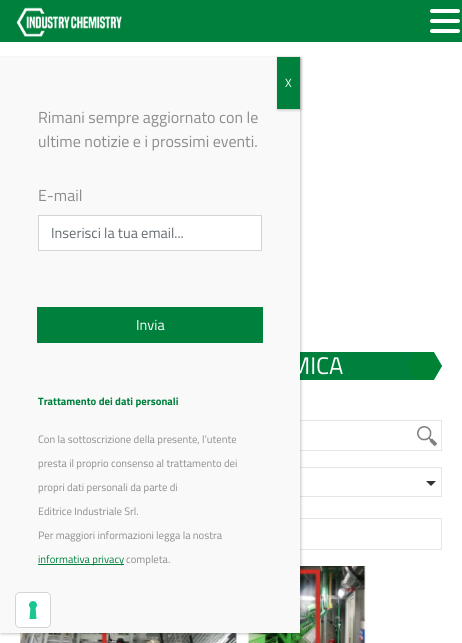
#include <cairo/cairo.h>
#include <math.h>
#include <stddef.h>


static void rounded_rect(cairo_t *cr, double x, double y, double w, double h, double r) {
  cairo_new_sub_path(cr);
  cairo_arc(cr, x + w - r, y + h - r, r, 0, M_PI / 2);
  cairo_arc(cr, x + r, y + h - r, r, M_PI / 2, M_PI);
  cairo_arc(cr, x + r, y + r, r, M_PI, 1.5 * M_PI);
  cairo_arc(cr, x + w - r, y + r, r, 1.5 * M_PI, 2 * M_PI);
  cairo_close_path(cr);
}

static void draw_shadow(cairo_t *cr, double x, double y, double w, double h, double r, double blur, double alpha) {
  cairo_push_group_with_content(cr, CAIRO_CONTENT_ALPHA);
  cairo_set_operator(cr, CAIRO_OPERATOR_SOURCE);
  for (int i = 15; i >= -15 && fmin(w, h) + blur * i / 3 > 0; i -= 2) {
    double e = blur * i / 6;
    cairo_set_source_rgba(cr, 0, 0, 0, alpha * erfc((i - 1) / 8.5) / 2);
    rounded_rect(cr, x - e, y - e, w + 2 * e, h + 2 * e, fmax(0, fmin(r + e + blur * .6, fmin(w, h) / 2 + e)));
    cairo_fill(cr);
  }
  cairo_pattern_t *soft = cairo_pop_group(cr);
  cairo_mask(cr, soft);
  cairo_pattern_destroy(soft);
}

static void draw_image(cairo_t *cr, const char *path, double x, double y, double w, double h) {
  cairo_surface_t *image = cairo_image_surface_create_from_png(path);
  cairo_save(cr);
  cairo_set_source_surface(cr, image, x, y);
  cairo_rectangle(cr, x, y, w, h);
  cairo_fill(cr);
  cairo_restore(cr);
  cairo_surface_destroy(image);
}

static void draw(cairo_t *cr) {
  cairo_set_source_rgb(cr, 1, 1, 1);
  cairo_paint(cr);
  cairo_set_source_rgb(cr, 0, 128 / 255.0, 61 / 255.0);
  cairo_rectangle(cr, 0, 0, 462, 42);
  cairo_fill(cr);
  draw_image(cr, "images/1.png", 16, 7, 106, 30);
  cairo_set_source_rgb(cr, 1, 1, 1);
  rounded_rect(cr, 430, 9, 30, 4, 2);
  cairo_fill(cr);
  rounded_rect(cr, 430, 19, 30, 4, 2);
  cairo_fill(cr);
  rounded_rect(cr, 430, 29, 30, 4, 2);
  cairo_fill(cr);
  cairo_set_source_rgb(cr, 0, 128 / 255.0, 61 / 255.0);
  cairo_rectangle(cr, 300, 352, 116, 28);
  cairo_fill(cr);
  cairo_rectangle(cr, 20.5, 420.5, 421, 30);
  cairo_set_source_rgb(cr, 230 / 255.0, 230 / 255.0, 230 / 255.0);
  cairo_set_line_width(cr, 1);
  cairo_stroke(cr);
  cairo_rectangle(cr, 20.5, 467.5, 421, 29);
  cairo_stroke(cr);
  cairo_rectangle(cr, 20.5, 518.5, 421, 31);
  cairo_stroke(cr);
  draw_image(cr, "images/4.png", 20, 566, 422, 77);
  cairo_set_source_rgb(cr, 2 / 255.0, 2 / 255.0, 2 / 255.0);
  draw_shadow(cr, 1, 58, 300, 576, 0, 1.5, 0.23);
  draw_image(cr, "images/2.png", 407, 352, 35, 28);
  draw_image(cr, "images/3.png", 417, 426, 20, 20);
  cairo_set_source_rgb(cr, 51 / 255.0, 51 / 255.0, 51 / 255.0);
  cairo_new_path(cr);
  cairo_move_to(cr, 426, 481);
  cairo_line_to(cr, 436, 481);
  cairo_line_to(cr, 431, 486);
  cairo_close_path(cr);
  cairo_fill(cr);
  cairo_select_font_face(cr, "Titillium Web", CAIRO_FONT_SLANT_NORMAL, CAIRO_FONT_WEIGHT_NORMAL);
  cairo_set_font_size(cr, 24);
  cairo_set_source_rgb(cr, 1, 1, 1);
  cairo_move_to(cr, 290, 374);
  cairo_show_text(cr, "MICA");
  cairo_set_source_rgb(cr, 249 / 255.0, 249 / 255.0, 249 / 255.0);
  cairo_rectangle(cr, 0, 57, 300, 576);
  cairo_fill(cr);
  cairo_set_source_rgb(cr, 2 / 255.0, 2 / 255.0, 2 / 255.0);
  draw_shadow(cr, 278, 58, 23, 52, 0, 1.5, 0.23);
  cairo_set_source_rgb(cr, 0, 128 / 255.0, 61 / 255.0);
  cairo_rectangle(cr, 277, 57, 23, 52);
  cairo_fill(cr);
  cairo_set_font_size(cr, 12);
  cairo_set_source_rgb(cr, 1, 1, 1);
  cairo_move_to(cr, 285, 87);
  cairo_show_text(cr, "X");
  cairo_set_source_rgb(cr, 0, 128 / 255.0, 61 / 255.0);
  cairo_rectangle(cr, 37, 307, 226, 36);
  cairo_fill(cr);
  cairo_set_font_size(cr, 14.5);
  cairo_set_source_rgb(cr, 1, 1, 1);
  cairo_move_to(cr, 136, 330);
  cairo_show_text(cr, "Invia");
  cairo_set_font_size(cr, 10.7);
  cairo_set_source_rgb(cr, 140 / 255.0, 140 / 255.0, 140 / 255.0);
  cairo_move_to(cr, 126, 563);
  cairo_show_text(cr, "completa.");
  cairo_set_source_rgb(cr, 0, 128 / 255.0, 61 / 255.0);
  cairo_rectangle(cr, 38, 564, 86, 1);
  cairo_fill(cr);
  cairo_move_to(cr, 38, 563);
  cairo_show_text(cr, "informativa privacy");
  cairo_set_source_rgb(cr, 140 / 255.0, 140 / 255.0, 140 / 255.0);
  cairo_move_to(cr, 38, 539);
  cairo_show_text(cr, "Per maggiori informazioni legga la nostra");
  cairo_move_to(cr, 38, 515);
  cairo_show_text(cr, "Editrice Industriale Srl.");
  cairo_move_to(cr, 38, 491);
  cairo_show_text(cr, "propri dati personali da parte di");
  cairo_move_to(cr, 38, 467);
  cairo_show_text(cr, "presta il proprio consenso al trattamento dei");
  cairo_move_to(cr, 38, 443);
  cairo_show_text(cr, "Con la sottoscrizione della presente, l’utente");
  cairo_select_font_face(cr, "Titillium Web", CAIRO_FONT_SLANT_NORMAL, CAIRO_FONT_WEIGHT_BOLD);
  cairo_set_source_rgb(cr, 0, 128 / 255.0, 61 / 255.0);
  cairo_move_to(cr, 38, 405);
  cairo_show_text(cr, "Trattamento dei dati personali");
  cairo_set_source_rgb(cr, 1, 1, 1);
  cairo_rectangle(cr, 38.5, 215.5, 223, 35);
  cairo_fill_preserve(cr);
  cairo_set_source_rgb(cr, 212 / 255.0, 212 / 255.0, 212 / 255.0);
  cairo_stroke(cr);
  cairo_select_font_face(cr, "Titillium Web", CAIRO_FONT_SLANT_NORMAL, CAIRO_FONT_WEIGHT_NORMAL);
  cairo_set_font_size(cr, 14.5);
  cairo_set_source_rgb(cr, 99 / 255.0, 108 / 255.0, 114 / 255.0);
  cairo_move_to(cr, 51, 238);
  cairo_show_text(cr, "Inserisci la tua email...");
  cairo_set_font_size(cr, 16);
  cairo_set_source_rgb(cr, 140 / 255.0, 140 / 255.0, 140 / 255.0);
  cairo_move_to(cr, 38, 201);
  cairo_show_text(cr, "E-mail");
  cairo_move_to(cr, 38, 147);
  cairo_show_text(cr, "ultime notizie e i prossimi eventi.");
  cairo_move_to(cr, 38, 123);
  cairo_show_text(cr, "Rimani sempre aggiornato con le");
  rounded_rect(cr, 15.5, 592.5, 35, 35, 4.5);
  cairo_set_source_rgb(cr, 212 / 255.0, 212 / 255.0, 212 / 255.0);
  cairo_stroke(cr);
  cairo_set_source_rgb(cr, 1, 1, 1);
  rounded_rect(cr, 16, 593, 34, 34, 4);
  cairo_fill(cr);
  draw_image(cr, "images/5.png", 29, 601, 8, 18);
}

int main(void) {
  cairo_surface_t *surface = cairo_image_surface_create(CAIRO_FORMAT_RGB24, 462, 643);
  cairo_t *cr = cairo_create(surface);
  cairo_font_options_t *options = cairo_font_options_create();
  cairo_font_options_set_hint_metrics(options, CAIRO_HINT_METRICS_OFF);
  cairo_font_options_set_hint_style(options, CAIRO_HINT_STYLE_NONE);
  cairo_set_font_options(cr, options);
  cairo_set_miter_limit(cr, 4);
  draw(cr);
  cairo_surface_write_to_png(surface, "out.png");
  cairo_font_options_destroy(options);
  cairo_destroy(cr);
  cairo_surface_destroy(surface);
  return 0;
}
